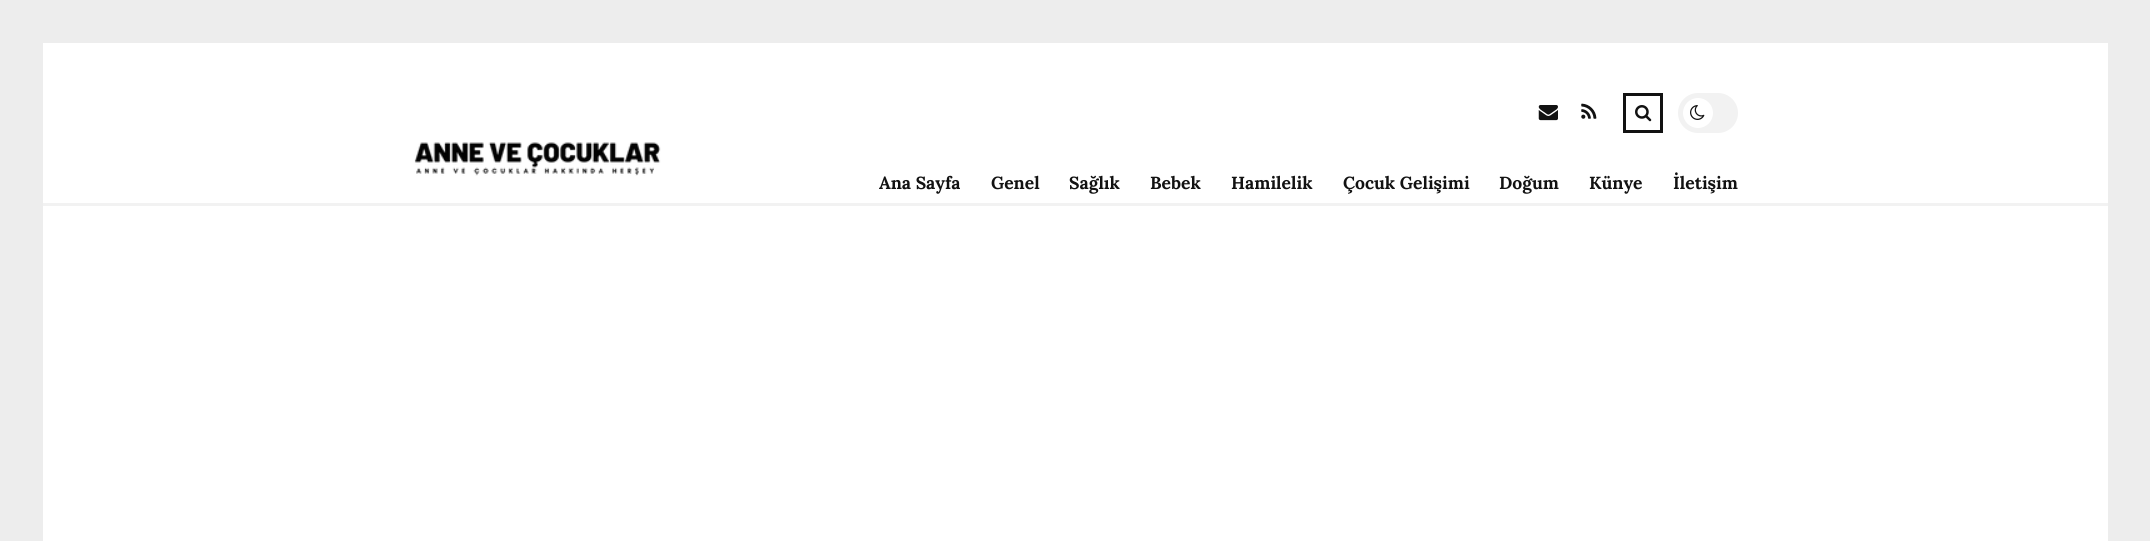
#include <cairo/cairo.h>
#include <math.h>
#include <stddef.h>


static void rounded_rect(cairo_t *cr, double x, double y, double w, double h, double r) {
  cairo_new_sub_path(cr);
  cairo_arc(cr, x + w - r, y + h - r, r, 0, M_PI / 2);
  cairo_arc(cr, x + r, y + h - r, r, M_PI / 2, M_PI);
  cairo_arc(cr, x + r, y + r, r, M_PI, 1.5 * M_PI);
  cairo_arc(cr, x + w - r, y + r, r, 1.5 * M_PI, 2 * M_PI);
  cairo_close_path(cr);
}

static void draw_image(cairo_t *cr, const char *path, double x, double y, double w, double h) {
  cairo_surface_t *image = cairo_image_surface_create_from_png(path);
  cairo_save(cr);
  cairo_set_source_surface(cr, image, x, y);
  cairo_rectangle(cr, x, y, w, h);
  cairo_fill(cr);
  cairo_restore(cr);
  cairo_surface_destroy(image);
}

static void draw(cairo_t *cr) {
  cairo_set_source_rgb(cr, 237 / 255.0, 237 / 255.0, 237 / 255.0);
  cairo_paint(cr);
  cairo_set_source_rgb(cr, 1, 1, 1);
  cairo_rectangle(cr, 43, 43, 2065, 498);
  cairo_fill(cr);
  cairo_set_source_rgb(cr, 242 / 255.0, 242 / 255.0, 242 / 255.0);
  cairo_rectangle(cr, 43, 203, 2065, 3);
  cairo_fill(cr);
  draw_image(cr, "images/1.png", 414, 142, 247, 34);
  draw_image(cr, "images/2.png", 1538, 105, 20, 16);
  draw_image(cr, "images/3.png", 1581, 103, 16, 16);
  cairo_rectangle(cr, 1624.5, 94.5, 37, 37);
  cairo_set_source_rgb(cr, 18 / 255.0, 18 / 255.0, 18 / 255.0);
  cairo_set_line_width(cr, 3);
  cairo_stroke(cr);
  draw_image(cr, "images/4.png", 1635, 105, 17, 17);
  cairo_set_source_rgb(cr, 242 / 255.0, 242 / 255.0, 242 / 255.0);
  rounded_rect(cr, 1678, 93, 60, 40, 20);
  cairo_fill(cr);
  cairo_set_source_rgb(cr, 1, 1, 1);
  cairo_arc(cr, 1698, 113, 15, 0, 2 * M_PI);
  cairo_fill(cr);
  draw_image(cr, "images/5.png", 1690, 105, 15, 15);
  cairo_select_font_face(cr, "Lora", CAIRO_FONT_SLANT_NORMAL, CAIRO_FONT_WEIGHT_BOLD);
  cairo_set_font_size(cr, 17.5);
  cairo_set_source_rgb(cr, 18 / 255.0, 18 / 255.0, 18 / 255.0);
  cairo_move_to(cr, 879, 189);
  cairo_show_text(cr, "Ana Sayfa");
  cairo_move_to(cr, 991, 189);
  cairo_show_text(cr, "Genel");
  cairo_move_to(cr, 1069, 189);
  cairo_show_text(cr, "Sağlık");
  cairo_move_to(cr, 1150, 189);
  cairo_show_text(cr, "Bebek");
  cairo_move_to(cr, 1231, 189);
  cairo_show_text(cr, "Hamilelik");
  cairo_move_to(cr, 1343, 189);
  cairo_show_text(cr, "Çocuk Gelişimi");
  cairo_move_to(cr, 1499, 189);
  cairo_show_text(cr, "Doğum");
  cairo_move_to(cr, 1589, 189);
  cairo_show_text(cr, "Künye");
  cairo_move_to(cr, 1673, 189);
  cairo_show_text(cr, "İletişim");
}

int main(void) {
  cairo_surface_t *surface = cairo_image_surface_create(CAIRO_FORMAT_RGB24, 2150, 541);
  cairo_t *cr = cairo_create(surface);
  cairo_font_options_t *options = cairo_font_options_create();
  cairo_font_options_set_hint_metrics(options, CAIRO_HINT_METRICS_OFF);
  cairo_font_options_set_hint_style(options, CAIRO_HINT_STYLE_NONE);
  cairo_set_font_options(cr, options);
  cairo_set_miter_limit(cr, 4);
  draw(cr);
  cairo_surface_write_to_png(surface, "out.png");
  cairo_font_options_destroy(options);
  cairo_destroy(cr);
  cairo_surface_destroy(surface);
  return 0;
}
